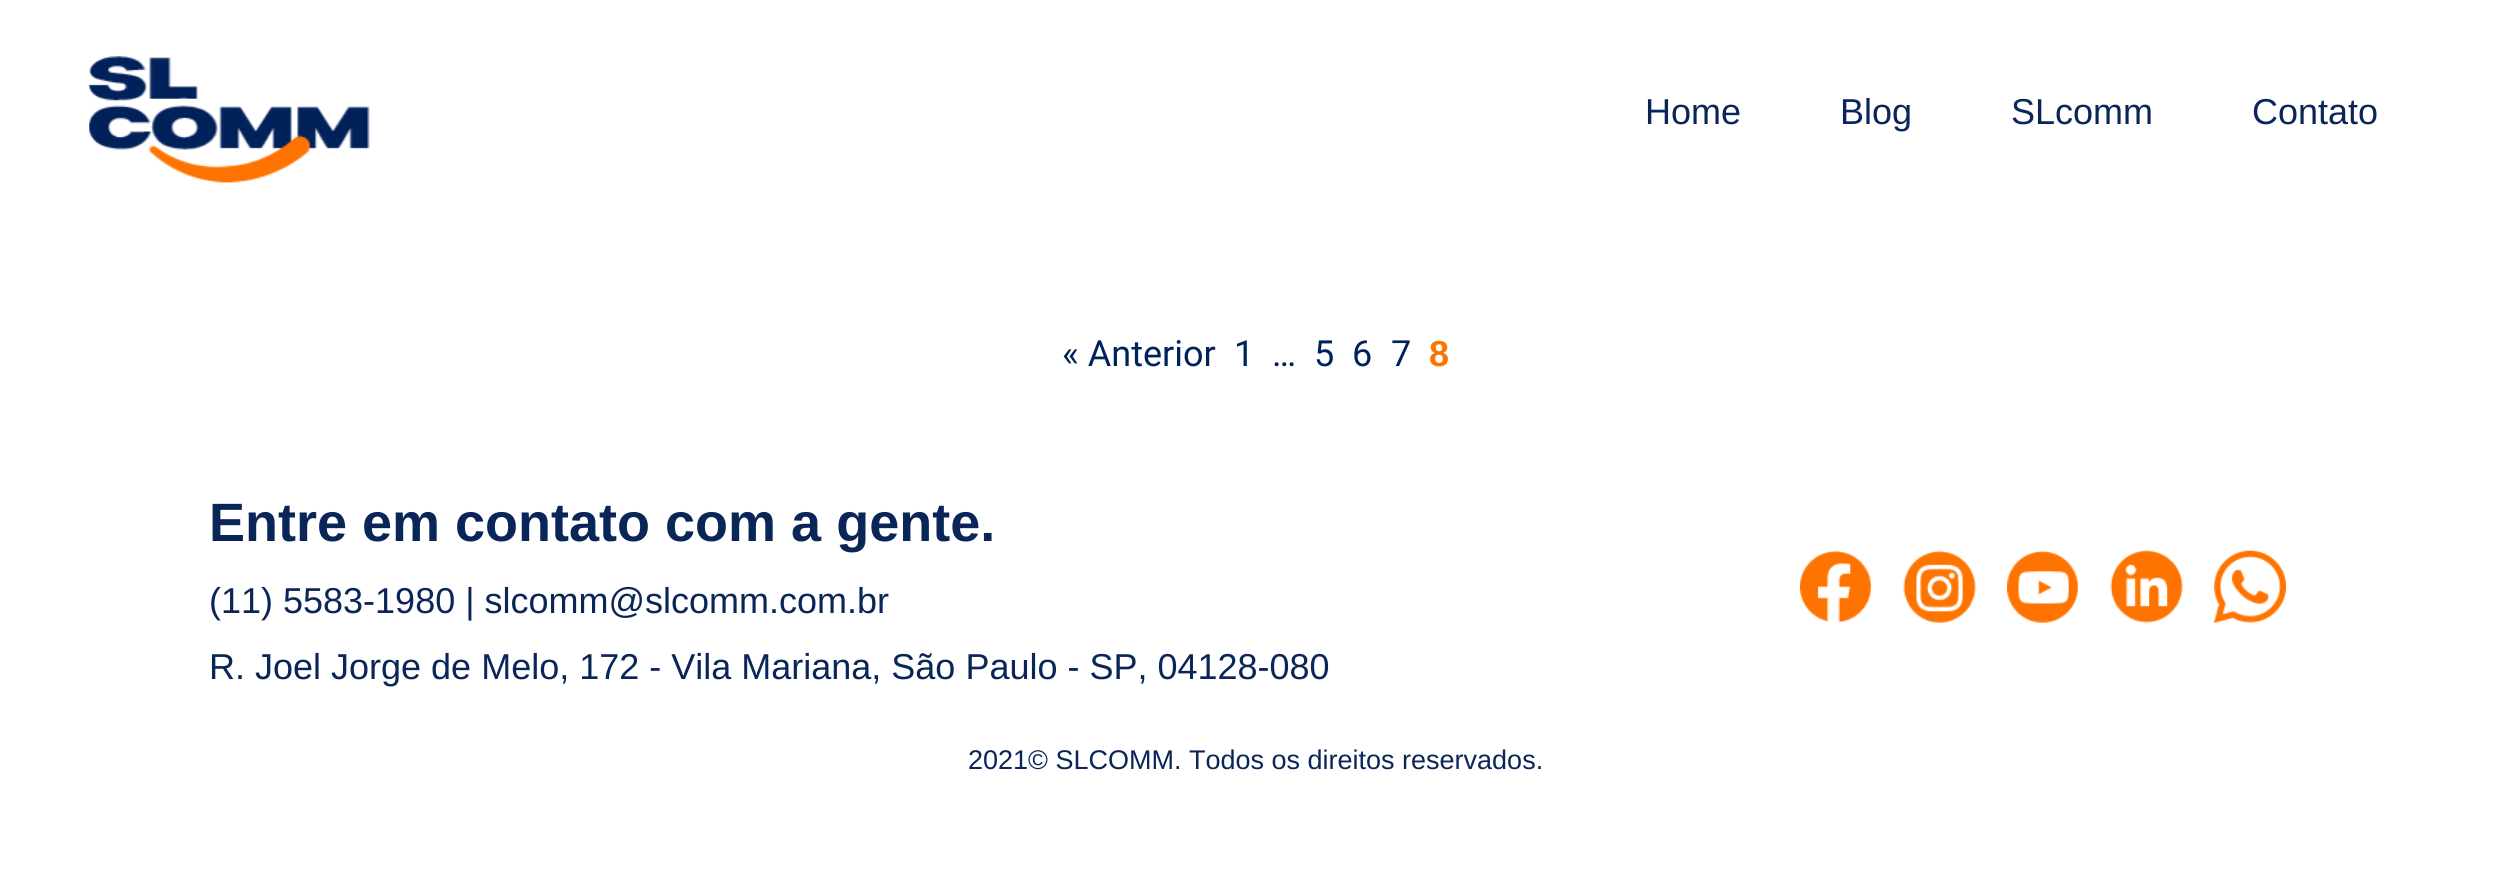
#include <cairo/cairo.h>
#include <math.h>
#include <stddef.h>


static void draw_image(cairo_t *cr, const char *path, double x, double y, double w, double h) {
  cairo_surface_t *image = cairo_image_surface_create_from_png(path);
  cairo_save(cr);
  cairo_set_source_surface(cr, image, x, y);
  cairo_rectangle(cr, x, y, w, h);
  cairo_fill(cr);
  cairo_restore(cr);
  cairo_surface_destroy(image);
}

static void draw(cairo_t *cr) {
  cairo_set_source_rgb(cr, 1, 1, 1);
  cairo_paint(cr);
  draw_image(cr, "images/1.png", 88, 56, 282, 127);
  draw_image(cr, "images/2.png", 1800, 550, 72, 73);
  draw_image(cr, "images/3.png", 1903, 550, 73, 73);
  draw_image(cr, "images/4.png", 2007, 550, 72, 73);
  draw_image(cr, "images/5.png", 2110, 550, 73, 73);
  draw_image(cr, "images/6.png", 2214, 550, 72, 73);
  cairo_select_font_face(cr, "Liberation Sans", CAIRO_FONT_SLANT_NORMAL, CAIRO_FONT_WEIGHT_NORMAL);
  cairo_set_font_size(cr, 36);
  cairo_set_source_rgb(cr, 10 / 255.0, 38 / 255.0, 89 / 255.0);
  cairo_move_to(cr, 1645, 124);
  cairo_show_text(cr, "Home");
  cairo_move_to(cr, 1840, 124);
  cairo_show_text(cr, "Blog");
  cairo_move_to(cr, 2011, 124);
  cairo_show_text(cr, "SLcomm");
  cairo_move_to(cr, 2252, 124);
  cairo_show_text(cr, "Contato");
  cairo_select_font_face(cr, "Roboto", CAIRO_FONT_SLANT_NORMAL, CAIRO_FONT_WEIGHT_NORMAL);
  cairo_set_source_rgb(cr, 0, 34 / 255.0, 91 / 255.0);
  cairo_move_to(cr, 1062, 366);
  cairo_show_text(cr, "« Anterior");
  cairo_move_to(cr, 1234, 366);
  cairo_show_text(cr, "1");
  cairo_move_to(cr, 1272, 366);
  cairo_show_text(cr, "…");
  cairo_move_to(cr, 1314, 366);
  cairo_show_text(cr, "5");
  cairo_move_to(cr, 1352, 366);
  cairo_show_text(cr, "6");
  cairo_move_to(cr, 1391, 366);
  cairo_show_text(cr, "7");
  cairo_select_font_face(cr, "Liberation Sans", CAIRO_FONT_SLANT_NORMAL, CAIRO_FONT_WEIGHT_BOLD);
  cairo_set_source_rgb(cr, 1, 116 / 255.0, 0);
  cairo_move_to(cr, 1429, 366);
  cairo_show_text(cr, "8");
  cairo_set_font_size(cr, 54);
  cairo_set_source_rgb(cr, 10 / 255.0, 38 / 255.0, 89 / 255.0);
  cairo_move_to(cr, 209, 541);
  cairo_show_text(cr, "Entre em contato com a gente.");
  cairo_select_font_face(cr, "Liberation Sans", CAIRO_FONT_SLANT_NORMAL, CAIRO_FONT_WEIGHT_NORMAL);
  cairo_set_font_size(cr, 36);
  cairo_move_to(cr, 209, 613);
  cairo_show_text(cr, "(11) 5583-1980 | slcomm@slcomm.com.br");
  cairo_move_to(cr, 209, 679);
  cairo_show_text(cr, "R. Joel Jorge de Melo, 172 - Vila Mariana, São Paulo - SP, 04128-080");
  cairo_set_font_size(cr, 27);
  cairo_move_to(cr, 968, 769);
  cairo_show_text(cr, "2021© SLCOMM. Todos os direitos reservados.");
}

int main(void) {
  cairo_surface_t *surface = cairo_image_surface_create(CAIRO_FORMAT_RGB24, 2509, 870);
  cairo_t *cr = cairo_create(surface);
  cairo_font_options_t *options = cairo_font_options_create();
  cairo_font_options_set_hint_metrics(options, CAIRO_HINT_METRICS_OFF);
  cairo_font_options_set_hint_style(options, CAIRO_HINT_STYLE_NONE);
  cairo_set_font_options(cr, options);
  cairo_set_miter_limit(cr, 4);
  draw(cr);
  cairo_surface_write_to_png(surface, "out.png");
  cairo_font_options_destroy(options);
  cairo_destroy(cr);
  cairo_surface_destroy(surface);
  return 0;
}
